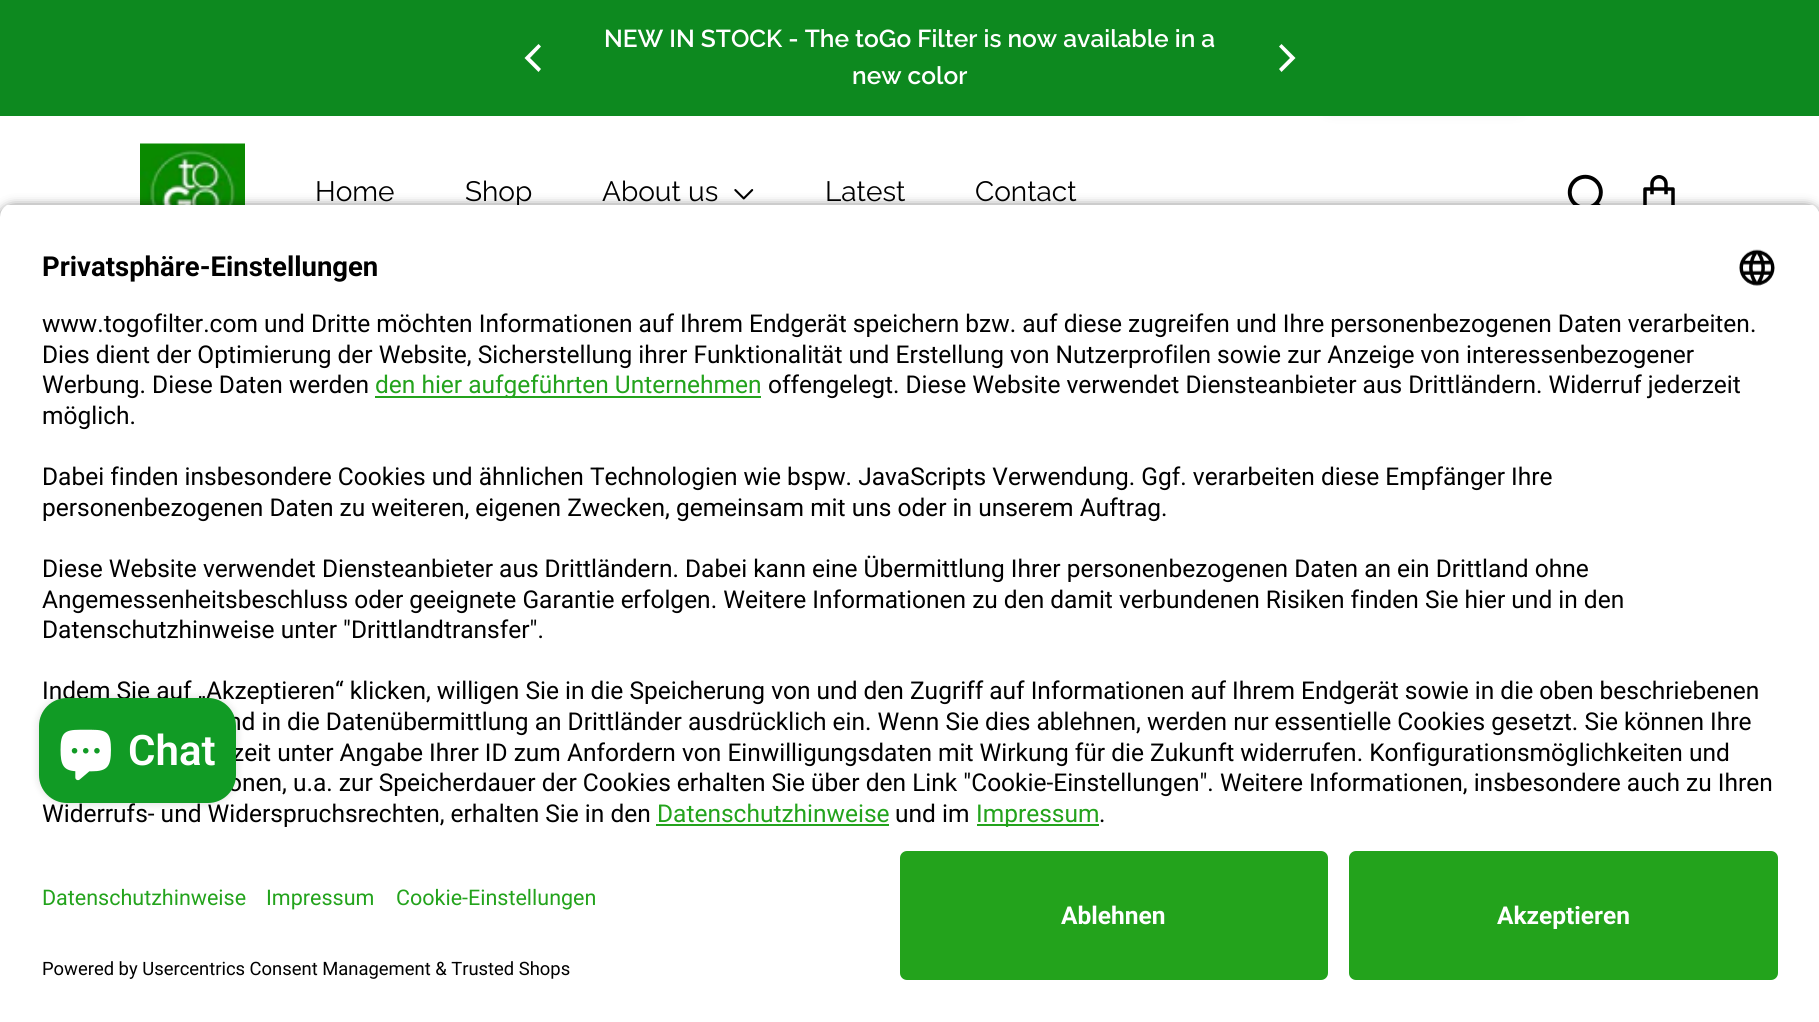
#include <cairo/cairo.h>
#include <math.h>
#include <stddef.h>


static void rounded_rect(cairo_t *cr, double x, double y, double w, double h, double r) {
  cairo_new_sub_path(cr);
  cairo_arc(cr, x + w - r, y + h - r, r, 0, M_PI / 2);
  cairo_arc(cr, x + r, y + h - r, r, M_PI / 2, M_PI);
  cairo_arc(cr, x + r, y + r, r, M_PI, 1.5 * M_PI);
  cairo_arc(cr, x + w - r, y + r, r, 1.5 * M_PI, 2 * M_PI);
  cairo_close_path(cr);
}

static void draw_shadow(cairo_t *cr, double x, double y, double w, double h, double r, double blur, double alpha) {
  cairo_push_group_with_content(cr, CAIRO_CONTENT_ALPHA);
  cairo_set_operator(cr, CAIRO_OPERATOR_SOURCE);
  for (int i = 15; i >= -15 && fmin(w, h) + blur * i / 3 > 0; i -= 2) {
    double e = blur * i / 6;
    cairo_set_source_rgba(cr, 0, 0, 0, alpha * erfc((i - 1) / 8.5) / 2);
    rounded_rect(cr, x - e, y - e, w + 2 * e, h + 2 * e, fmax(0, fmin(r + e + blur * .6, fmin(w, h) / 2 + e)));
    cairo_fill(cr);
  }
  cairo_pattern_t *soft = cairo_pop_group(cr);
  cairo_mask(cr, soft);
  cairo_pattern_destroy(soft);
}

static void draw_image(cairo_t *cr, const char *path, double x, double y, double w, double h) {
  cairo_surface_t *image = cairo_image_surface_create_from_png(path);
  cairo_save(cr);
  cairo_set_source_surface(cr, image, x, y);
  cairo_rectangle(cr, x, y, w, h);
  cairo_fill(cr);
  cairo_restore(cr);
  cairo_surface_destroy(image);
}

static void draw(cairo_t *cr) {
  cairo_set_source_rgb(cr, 1, 1, 1);
  cairo_paint(cr);
  cairo_set_source_rgb(cr, 0, 0, 0);
  draw_shadow(cr, 1325, 47, 198, 60, 5, 9, 0.15);
  cairo_set_source_rgb(cr, 13 / 255.0, 137 / 255.0, 31 / 255.0);
  cairo_rectangle(cr, 0, 0, 1819, 116);
  cairo_fill(cr);
  cairo_set_source_rgb(cr, 1, 1, 1);
  cairo_new_path(cr);
  cairo_move_to(cr, 524.5, 58);
  cairo_line_to(cr, 538.5, 72);
  cairo_line_to(cr, 541, 69);
  cairo_line_to(cr, 530, 58);
  cairo_line_to(cr, 541, 46.5);
  cairo_line_to(cr, 538.5, 44);
  cairo_close_path(cr);
  cairo_fill(cr);
  cairo_new_path(cr);
  cairo_move_to(cr, 1295.5, 58);
  cairo_line_to(cr, 1281.5, 44);
  cairo_line_to(cr, 1279, 46.5);
  cairo_line_to(cr, 1290, 58);
  cairo_line_to(cr, 1279, 69);
  cairo_line_to(cr, 1281.5, 72);
  cairo_close_path(cr);
  cairo_fill(cr);
  draw_image(cr, "images/1.png", 140, 143, 105, 62);
  draw_image(cr, "images/2.png", 734, 189, 20, 11);
  draw_image(cr, "images/3.png", 1567, 174, 36, 31);
  draw_image(cr, "images/4.png", 1643, 175, 32, 30);
  cairo_set_source_rgb(cr, 0, 0, 0);
  draw_shadow(cr, 0, 208, 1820, 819, 14, 6, 0.8);
  cairo_set_source_rgb(cr, 1, 1, 1);
  cairo_rectangle(cr, 0, 837, 1819, 185);
  cairo_fill(cr);
  cairo_set_source_rgb(cr, 35 / 255.0, 163 / 255.0, 28 / 255.0);
  rounded_rect(cr, 900, 851, 428, 129, 7);
  cairo_fill(cr);
  rounded_rect(cr, 1349, 851, 429, 129, 7);
  cairo_fill(cr);
  cairo_select_font_face(cr, "Raleway SemiBold", CAIRO_FONT_SLANT_NORMAL, CAIRO_FONT_WEIGHT_NORMAL);
  cairo_set_font_size(cr, 24.5);
  cairo_set_source_rgb(cr, 1, 1, 1);
  cairo_move_to(cr, 604, 47);
  cairo_show_text(cr, "NEW IN STOCK - The toGo Filter is now available in a");
  cairo_move_to(cr, 852, 84);
  cairo_show_text(cr, "new color");
  cairo_select_font_face(cr, "Raleway", CAIRO_FONT_SLANT_NORMAL, CAIRO_FONT_WEIGHT_NORMAL);
  cairo_set_font_size(cr, 28);
  cairo_set_source_rgb(cr, 0, 0, 0);
  cairo_move_to(cr, 315, 201);
  cairo_show_text(cr, "Home");
  cairo_move_to(cr, 465, 201);
  cairo_show_text(cr, "Shop");
  cairo_move_to(cr, 602, 201);
  cairo_show_text(cr, "About us");
  cairo_move_to(cr, 825, 201);
  cairo_show_text(cr, "Latest");
  cairo_move_to(cr, 975, 201);
  cairo_show_text(cr, "Contact");
  cairo_save(cr);
  cairo_new_path(cr);
  cairo_move_to(cr, 14, 203);
  cairo_line_to(cr, 1806, 203);
  cairo_curve_to(cr, 1813.5, 203, 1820, 209.5, 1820, 217);
  cairo_line_to(cr, 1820, 837);
  cairo_line_to(cr, 0, 837);
  cairo_line_to(cr, 0, 217);
  cairo_curve_to(cr, 0, 209.5, 6.5, 203, 14, 203);
  cairo_close_path(cr);
  cairo_clip(cr);
  cairo_set_source_rgb(cr, 1, 1, 1);
  cairo_rectangle(cr, 0, 205, 1819, 632);
  cairo_fill(cr);
  cairo_restore(cr);
  cairo_select_font_face(cr, "Roboto", CAIRO_FONT_SLANT_NORMAL, CAIRO_FONT_WEIGHT_BOLD);
  cairo_set_font_size(cr, 27.5);
  cairo_move_to(cr, 42, 276);
  cairo_show_text(cr, "Privatsphäre-Einstellungen");
  draw_image(cr, "images/5.png", 1739, 249, 36, 37);
  cairo_select_font_face(cr, "Roboto", CAIRO_FONT_SLANT_NORMAL, CAIRO_FONT_WEIGHT_NORMAL);
  cairo_set_font_size(cr, 24.5);
  cairo_move_to(cr, 42, 332);
  cairo_show_text(cr, "www.togofilter.com und Dritte möchten Informationen auf Ihrem Endgerät speichern bzw. auf diese zugreifen und Ihre personenbezogenen Daten verarbeiten.");
  cairo_move_to(cr, 42, 363);
  cairo_show_text(cr, "Dies dient der Optimierung der Website, Sicherstellung ihrer Funktionalität und Erstellung von Nutzerprofilen sowie zur Anzeige von interessenbezogener");
  cairo_move_to(cr, 42, 393);
  cairo_show_text(cr, "Werbung. Diese Daten werden");
  cairo_set_source_rgb(cr, 35 / 255.0, 163 / 255.0, 28 / 255.0);
  cairo_rectangle(cr, 375, 396, 386, 2);
  cairo_fill(cr);
  cairo_move_to(cr, 375, 393);
  cairo_show_text(cr, "den hier aufgeführten Unternehmen");
  cairo_set_source_rgb(cr, 0, 0, 0);
  cairo_move_to(cr, 768, 393);
  cairo_show_text(cr, "offengelegt. Diese Website verwendet Diensteanbieter aus Drittländern. Widerruf jederzeit");
  cairo_move_to(cr, 42, 424);
  cairo_show_text(cr, "möglich.");
  cairo_move_to(cr, 42, 485);
  cairo_show_text(cr, "Dabei finden insbesondere Cookies und ähnlichen Technologien wie bspw. JavaScripts Verwendung. Ggf. verarbeiten diese Empfänger Ihre");
  cairo_move_to(cr, 42, 516);
  cairo_show_text(cr, "personenbezogenen Daten zu weiteren, eigenen Zwecken, gemeinsam mit uns oder in unserem Auftrag.");
  cairo_move_to(cr, 42, 577);
  cairo_show_text(cr, "Diese Website verwendet Diensteanbieter aus Drittländern. Dabei kann eine Übermittlung Ihrer personenbezogenen Daten an ein Drittland ohne");
  cairo_move_to(cr, 42, 608);
  cairo_show_text(cr, "Angemessenheitsbeschluss oder geeignete Garantie erfolgen. Weitere Informationen zu den damit verbundenen Risiken finden Sie hier und in den");
  cairo_move_to(cr, 42, 638);
  cairo_show_text(cr, "Datenschutzhinweise unter \"Drittlandtransfer\".");
  cairo_move_to(cr, 42, 699);
  cairo_show_text(cr, "Indem Sie auf „Akzeptieren“ klicken, willigen Sie in die Speicherung von und den Zugriff auf Informationen auf Ihrem Endgerät sowie in die oben beschriebenen");
  cairo_move_to(cr, 228, 730);
  cairo_show_text(cr, "nd in die Datenübermittlung an Drittländer ausdrücklich ein. Wenn Sie dies ablehnen, werden nur essentielle Cookies gesetzt. Sie können Ihre");
  cairo_move_to(cr, 232, 761);
  cairo_show_text(cr, "zeit unter Angabe Ihrer ID zum Anfordern von Einwilligungsdaten mit Wirkung für die Zukunft widerrufen. Konfigurationsmöglichkeiten und");
  cairo_move_to(cr, 228, 791);
  cairo_show_text(cr, "onen, u.a. zur Speicherdauer der Cookies erhalten Sie über den Link \"Cookie-Einstellungen\". Weitere Informationen, insbesondere auch zu Ihren");
  cairo_move_to(cr, 42, 822);
  cairo_show_text(cr, "Widerrufs- und Widerspruchsrechten, erhalten Sie in den");
  cairo_set_source_rgb(cr, 35 / 255.0, 163 / 255.0, 28 / 255.0);
  cairo_move_to(cr, 657, 822);
  cairo_show_text(cr, "Datenschutzhinweise");
  cairo_rectangle(cr, 656, 824, 233, 2);
  cairo_fill(cr);
  cairo_set_source_rgb(cr, 0, 0, 0);
  cairo_move_to(cr, 895, 822);
  cairo_show_text(cr, "und im");
  cairo_move_to(cr, 1099, 822);
  cairo_show_text(cr, ".");
  cairo_set_source_rgb(cr, 35 / 255.0, 163 / 255.0, 28 / 255.0);
  cairo_rectangle(cr, 977, 824, 122, 2);
  cairo_fill(cr);
  cairo_move_to(cr, 976, 822);
  cairo_show_text(cr, "Impressum");
  cairo_set_font_size(cr, 21.5);
  cairo_move_to(cr, 42, 905);
  cairo_show_text(cr, "Datenschutzhinweise");
  cairo_move_to(cr, 266, 905);
  cairo_show_text(cr, "Impressum");
  cairo_move_to(cr, 396, 905);
  cairo_show_text(cr, "Cookie-Einstellungen");
  cairo_set_font_size(cr, 18.4);
  cairo_set_source_rgb(cr, 0, 0, 0);
  cairo_move_to(cr, 42, 975);
  cairo_show_text(cr, "Powered by Usercentrics Consent Management & Trusted Shops");
  cairo_select_font_face(cr, "Roboto", CAIRO_FONT_SLANT_NORMAL, CAIRO_FONT_WEIGHT_BOLD);
  cairo_set_font_size(cr, 24.5);
  cairo_set_source_rgb(cr, 1, 1, 1);
  cairo_move_to(cr, 1061, 924);
  cairo_show_text(cr, "Ablehnen");
  cairo_move_to(cr, 1497, 924);
  cairo_show_text(cr, "Akzeptieren");
  cairo_set_source_rgb(cr, 0, 0, 0);
  draw_shadow(cr, 39, 698, 197, 105, 28, 4.5, 0.15);
  cairo_set_source_rgb(cr, 17 / 255.0, 155 / 255.0, 37 / 255.0);
  rounded_rect(cr, 39, 698, 197, 105, 28);
  cairo_fill(cr);
  draw_image(cr, "images/6.png", 60, 729, 51, 52);
  cairo_select_font_face(cr, "Roboto SemiBold", CAIRO_FONT_SLANT_NORMAL, CAIRO_FONT_WEIGHT_NORMAL);
  cairo_set_font_size(cr, 42);
  cairo_set_source_rgb(cr, 1, 1, 1);
  cairo_move_to(cr, 128, 765);
  cairo_show_text(cr, "Chat");
}

int main(void) {
  cairo_surface_t *surface = cairo_image_surface_create(CAIRO_FORMAT_RGB24, 1819, 1022);
  cairo_t *cr = cairo_create(surface);
  cairo_font_options_t *options = cairo_font_options_create();
  cairo_font_options_set_hint_metrics(options, CAIRO_HINT_METRICS_OFF);
  cairo_font_options_set_hint_style(options, CAIRO_HINT_STYLE_NONE);
  cairo_set_font_options(cr, options);
  cairo_set_miter_limit(cr, 4);
  draw(cr);
  cairo_surface_write_to_png(surface, "out.png");
  cairo_font_options_destroy(options);
  cairo_destroy(cr);
  cairo_surface_destroy(surface);
  return 0;
}
